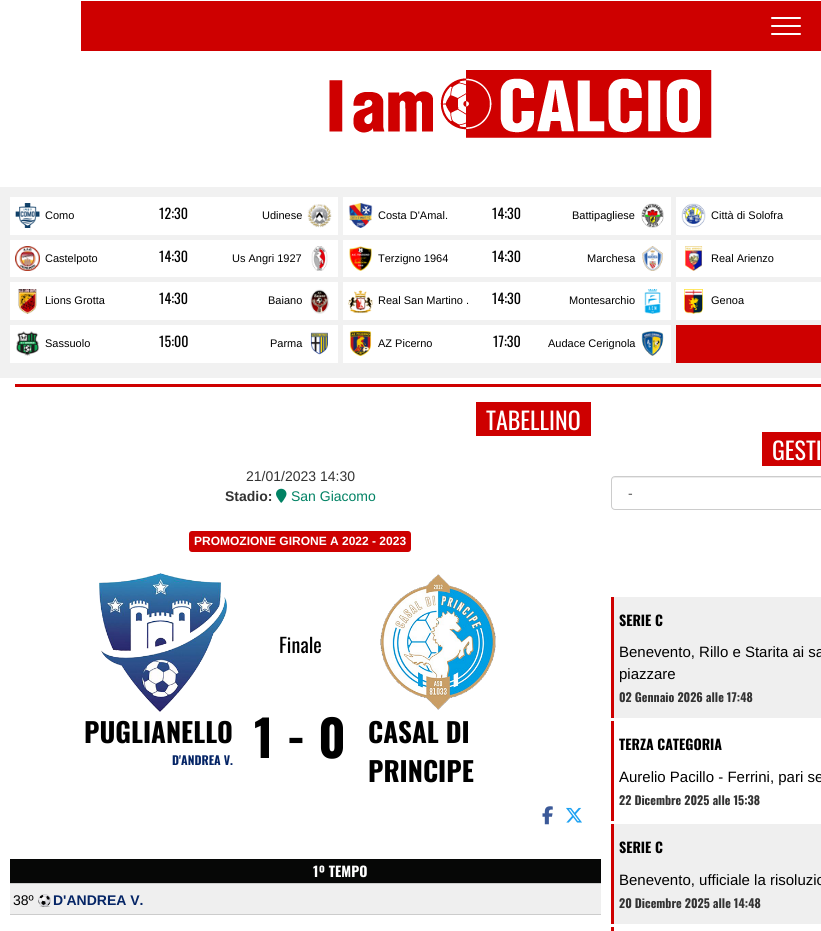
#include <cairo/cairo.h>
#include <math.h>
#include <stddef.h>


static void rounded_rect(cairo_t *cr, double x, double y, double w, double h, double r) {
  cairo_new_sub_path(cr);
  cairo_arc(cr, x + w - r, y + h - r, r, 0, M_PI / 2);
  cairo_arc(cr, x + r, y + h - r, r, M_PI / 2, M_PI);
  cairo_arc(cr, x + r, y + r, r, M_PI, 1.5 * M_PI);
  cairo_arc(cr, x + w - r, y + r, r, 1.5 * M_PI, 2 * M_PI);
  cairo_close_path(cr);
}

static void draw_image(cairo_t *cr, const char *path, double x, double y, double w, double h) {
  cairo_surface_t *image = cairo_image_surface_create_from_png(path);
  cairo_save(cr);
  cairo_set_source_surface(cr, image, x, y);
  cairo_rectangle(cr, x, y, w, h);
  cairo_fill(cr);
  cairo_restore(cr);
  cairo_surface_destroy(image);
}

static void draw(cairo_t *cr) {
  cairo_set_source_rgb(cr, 1, 1, 1);
  cairo_paint(cr);
  cairo_set_source_rgb(cr, 206 / 255.0, 0, 0);
  cairo_rectangle(cr, 81, 1, 740, 50);
  cairo_fill(cr);
  cairo_set_source_rgb(cr, 1, 1, 1);
  rounded_rect(cr, 771, 17, 30, 2, 1);
  cairo_fill(cr);
  rounded_rect(cr, 771, 25, 30, 2, 1);
  cairo_fill(cr);
  rounded_rect(cr, 771, 33, 30, 2, 1);
  cairo_fill(cr);
  draw_image(cr, "images/1.png", 329, 70, 383, 68);
  cairo_set_source_rgb(cr, 241 / 255.0, 241 / 255.0, 241 / 255.0);
  cairo_rectangle(cr, 0, 187, 821, 191);
  cairo_fill(cr);
  cairo_set_source_rgb(cr, 1, 1, 1);
  cairo_rectangle(cr, 10, 197, 328, 38);
  cairo_fill(cr);
  draw_image(cr, "images/2.png", 15, 203, 25, 25);
  draw_image(cr, "images/3.png", 307, 204, 25, 24);
  cairo_rectangle(cr, 343, 197, 328, 38);
  cairo_fill(cr);
  draw_image(cr, "images/4.png", 348, 203, 25, 25);
  draw_image(cr, "images/5.png", 641, 203, 23, 25);
  cairo_rectangle(cr, 676, 197, 145, 38);
  cairo_fill(cr);
  draw_image(cr, "images/6.png", 681, 203, 25, 25);
  cairo_rectangle(cr, 10, 240, 328, 37);
  cairo_fill(cr);
  draw_image(cr, "images/7.png", 15, 246, 25, 25);
  draw_image(cr, "images/8.png", 311, 246, 17, 25);
  cairo_rectangle(cr, 343, 240, 328, 37);
  cairo_fill(cr);
  draw_image(cr, "images/9.png", 349, 246, 23, 25);
  draw_image(cr, "images/10.png", 642, 246, 21, 25);
  cairo_rectangle(cr, 676, 240, 145, 37);
  cairo_fill(cr);
  draw_image(cr, "images/11.png", 685, 246, 18, 25);
  cairo_rectangle(cr, 10, 282, 328, 38);
  cairo_fill(cr);
  draw_image(cr, "images/12.png", 18, 289, 19, 25);
  draw_image(cr, "images/13.png", 310, 289, 19, 25);
  cairo_rectangle(cr, 343, 282, 328, 38);
  cairo_fill(cr);
  draw_image(cr, "images/14.png", 348, 290, 25, 24);
  draw_image(cr, "images/15.png", 644, 289, 17, 25);
  cairo_rectangle(cr, 676, 282, 145, 38);
  cairo_fill(cr);
  draw_image(cr, "images/16.png", 684, 289, 19, 25);
  cairo_rectangle(cr, 10, 325, 328, 38);
  cairo_fill(cr);
  draw_image(cr, "images/17.png", 16, 331, 24, 25);
  draw_image(cr, "images/18.png", 310, 332, 18, 23);
  cairo_rectangle(cr, 343, 325, 328, 38);
  cairo_fill(cr);
  draw_image(cr, "images/19.png", 349, 331, 23, 25);
  draw_image(cr, "images/20.png", 641, 331, 23, 25);
  cairo_set_source_rgb(cr, 206 / 255.0, 0, 0);
  cairo_rectangle(cr, 676, 325, 145, 38);
  cairo_fill(cr);
  cairo_rectangle(cr, 15, 384, 806, 3);
  cairo_fill(cr);
  cairo_rectangle(cr, 476, 402, 115, 34);
  cairo_fill(cr);
  draw_image(cr, "images/21.png", 276, 488, 11, 15);
  rounded_rect(cr, 189, 531, 222, 21, 3);
  cairo_fill(cr);
  draw_image(cr, "images/22.png", 99, 573, 128, 139);
  draw_image(cr, "images/23.png", 380, 574, 116, 136);
  draw_image(cr, "images/24.png", 542, 806, 11, 19);
  draw_image(cr, "images/25.png", 566, 807, 16, 16);
  cairo_set_source_rgb(cr, 6 / 255.0, 7 / 255.0, 6 / 255.0);
  cairo_rectangle(cr, 10, 859, 591, 24);
  cairo_fill(cr);
  cairo_set_source_rgb(cr, 204 / 255.0, 204 / 255.0, 204 / 255.0);
  cairo_rectangle(cr, 10, 883, 591, 1);
  cairo_fill(cr);
  cairo_set_source_rgb(cr, 239 / 255.0, 239 / 255.0, 239 / 255.0);
  cairo_rectangle(cr, 10, 884, 591, 30);
  cairo_fill(cr);
  cairo_set_source_rgb(cr, 204 / 255.0, 204 / 255.0, 204 / 255.0);
  cairo_rectangle(cr, 10, 914, 591, 1);
  cairo_fill(cr);
  draw_image(cr, "images/26.png", 38, 894, 13, 13);
  cairo_set_source_rgb(cr, 206 / 255.0, 0, 0);
  cairo_rectangle(cr, 762, 432, 59, 34);
  cairo_fill(cr);
  cairo_set_source_rgb(cr, 236 / 255.0, 236 / 255.0, 236 / 255.0);
  cairo_new_path(cr);
  cairo_move_to(cr, 615, 478);
  cairo_line_to(cr, 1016, 478);
  cairo_curve_to(cr, 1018, 478, 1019, 479, 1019, 481);
  cairo_curve_to(cr, 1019, 479, 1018, 477, 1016, 477);
  cairo_line_to(cr, 615, 477);
  cairo_curve_to(cr, 613, 477, 612, 479, 612, 481);
  cairo_curve_to(cr, 612, 479, 613, 478, 615, 478);
  cairo_close_path(cr);
  cairo_fill(cr);
  rounded_rect(cr, 611.5, 476.5, 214, 33, 3.5);
  cairo_set_source_rgb(cr, 204 / 255.0, 204 / 255.0, 204 / 255.0);
  cairo_set_line_width(cr, 1);
  cairo_stroke(cr);
  cairo_set_source_rgb(cr, 239 / 255.0, 239 / 255.0, 239 / 255.0);
  cairo_rectangle(cr, 614, 597, 207, 121);
  cairo_fill(cr);
  cairo_set_source_rgb(cr, 206 / 255.0, 0, 0);
  cairo_rectangle(cr, 611, 597, 3, 121);
  cairo_fill(cr);
  cairo_rectangle(cr, 611, 721, 3, 100);
  cairo_fill(cr);
  cairo_set_source_rgb(cr, 239 / 255.0, 239 / 255.0, 239 / 255.0);
  cairo_rectangle(cr, 614, 824, 207, 100);
  cairo_fill(cr);
  cairo_set_source_rgb(cr, 206 / 255.0, 0, 0);
  cairo_rectangle(cr, 611, 824, 3, 100);
  cairo_fill(cr);
  cairo_rectangle(cr, 611, 927, 3, 4);
  cairo_fill(cr);
  cairo_select_font_face(cr, "Liberation Sans", CAIRO_FONT_SLANT_NORMAL, CAIRO_FONT_WEIGHT_NORMAL);
  cairo_set_font_size(cr, 11);
  cairo_set_source_rgb(cr, 0, 0, 0);
  cairo_move_to(cr, 45, 219);
  cairo_show_text(cr, "Como");
  cairo_select_font_face(cr, "Oswald", CAIRO_FONT_SLANT_NORMAL, CAIRO_FONT_WEIGHT_NORMAL);
  cairo_set_font_size(cr, 14);
  cairo_move_to(cr, 159, 219);
  cairo_show_text(cr, "12:30");
  cairo_select_font_face(cr, "Liberation Sans", CAIRO_FONT_SLANT_NORMAL, CAIRO_FONT_WEIGHT_NORMAL);
  cairo_set_font_size(cr, 11);
  cairo_move_to(cr, 262, 219);
  cairo_show_text(cr, "Udinese");
  cairo_move_to(cr, 378, 219);
  cairo_show_text(cr, "Costa D'Amal.");
  cairo_select_font_face(cr, "Oswald", CAIRO_FONT_SLANT_NORMAL, CAIRO_FONT_WEIGHT_NORMAL);
  cairo_set_font_size(cr, 14);
  cairo_move_to(cr, 492, 219);
  cairo_show_text(cr, "14:30");
  cairo_select_font_face(cr, "Liberation Sans", CAIRO_FONT_SLANT_NORMAL, CAIRO_FONT_WEIGHT_NORMAL);
  cairo_set_font_size(cr, 11);
  cairo_move_to(cr, 572, 219);
  cairo_show_text(cr, "Battipagliese");
  cairo_move_to(cr, 711, 219);
  cairo_show_text(cr, "Città di Solofra");
  cairo_move_to(cr, 45, 262);
  cairo_show_text(cr, "Castelpoto");
  cairo_select_font_face(cr, "Oswald", CAIRO_FONT_SLANT_NORMAL, CAIRO_FONT_WEIGHT_NORMAL);
  cairo_set_font_size(cr, 14);
  cairo_move_to(cr, 159, 262);
  cairo_show_text(cr, "14:30");
  cairo_select_font_face(cr, "Liberation Sans", CAIRO_FONT_SLANT_NORMAL, CAIRO_FONT_WEIGHT_NORMAL);
  cairo_set_font_size(cr, 11);
  cairo_move_to(cr, 232, 262);
  cairo_show_text(cr, "Us Angri 1927");
  cairo_move_to(cr, 378, 262);
  cairo_show_text(cr, "Terzigno 1964");
  cairo_select_font_face(cr, "Oswald", CAIRO_FONT_SLANT_NORMAL, CAIRO_FONT_WEIGHT_NORMAL);
  cairo_set_font_size(cr, 14);
  cairo_move_to(cr, 492, 262);
  cairo_show_text(cr, "14:30");
  cairo_select_font_face(cr, "Liberation Sans", CAIRO_FONT_SLANT_NORMAL, CAIRO_FONT_WEIGHT_NORMAL);
  cairo_set_font_size(cr, 11);
  cairo_move_to(cr, 587, 262);
  cairo_show_text(cr, "Marchesa");
  cairo_move_to(cr, 711, 262);
  cairo_show_text(cr, "Real Arienzo");
  cairo_move_to(cr, 45, 304);
  cairo_show_text(cr, "Lions Grotta");
  cairo_select_font_face(cr, "Oswald", CAIRO_FONT_SLANT_NORMAL, CAIRO_FONT_WEIGHT_NORMAL);
  cairo_set_font_size(cr, 14);
  cairo_move_to(cr, 159, 304);
  cairo_show_text(cr, "14:30");
  cairo_select_font_face(cr, "Liberation Sans", CAIRO_FONT_SLANT_NORMAL, CAIRO_FONT_WEIGHT_NORMAL);
  cairo_set_font_size(cr, 11);
  cairo_move_to(cr, 268, 304);
  cairo_show_text(cr, "Baiano");
  cairo_move_to(cr, 378, 304);
  cairo_show_text(cr, "Real San Martino .");
  cairo_select_font_face(cr, "Oswald", CAIRO_FONT_SLANT_NORMAL, CAIRO_FONT_WEIGHT_NORMAL);
  cairo_set_font_size(cr, 14);
  cairo_move_to(cr, 492, 304);
  cairo_show_text(cr, "14:30");
  cairo_select_font_face(cr, "Liberation Sans", CAIRO_FONT_SLANT_NORMAL, CAIRO_FONT_WEIGHT_NORMAL);
  cairo_set_font_size(cr, 11);
  cairo_move_to(cr, 569, 304);
  cairo_show_text(cr, "Montesarchio");
  cairo_move_to(cr, 711, 304);
  cairo_show_text(cr, "Genoa");
  cairo_move_to(cr, 45, 347);
  cairo_show_text(cr, "Sassuolo");
  cairo_select_font_face(cr, "Oswald", CAIRO_FONT_SLANT_NORMAL, CAIRO_FONT_WEIGHT_NORMAL);
  cairo_set_font_size(cr, 14);
  cairo_move_to(cr, 159, 347);
  cairo_show_text(cr, "15:00");
  cairo_select_font_face(cr, "Liberation Sans", CAIRO_FONT_SLANT_NORMAL, CAIRO_FONT_WEIGHT_NORMAL);
  cairo_set_font_size(cr, 11);
  cairo_move_to(cr, 270, 347);
  cairo_show_text(cr, "Parma");
  cairo_move_to(cr, 378, 347);
  cairo_show_text(cr, "AZ Picerno");
  cairo_select_font_face(cr, "Oswald", CAIRO_FONT_SLANT_NORMAL, CAIRO_FONT_WEIGHT_NORMAL);
  cairo_set_font_size(cr, 14);
  cairo_move_to(cr, 493, 347);
  cairo_show_text(cr, "17:30");
  cairo_select_font_face(cr, "Liberation Sans", CAIRO_FONT_SLANT_NORMAL, CAIRO_FONT_WEIGHT_NORMAL);
  cairo_set_font_size(cr, 11);
  cairo_move_to(cr, 548, 347);
  cairo_show_text(cr, "Audace Cerignola");
  cairo_select_font_face(cr, "Oswald", CAIRO_FONT_SLANT_NORMAL, CAIRO_FONT_WEIGHT_NORMAL);
  cairo_set_font_size(cr, 24);
  cairo_set_source_rgb(cr, 1, 1, 1);
  cairo_move_to(cr, 486, 430);
  cairo_show_text(cr, "TABELLINO");
  cairo_select_font_face(cr, "Liberation Sans", CAIRO_FONT_SLANT_NORMAL, CAIRO_FONT_WEIGHT_NORMAL);
  cairo_set_font_size(cr, 14);
  cairo_set_source_rgb(cr, 51 / 255.0, 51 / 255.0, 51 / 255.0);
  cairo_move_to(cr, 246, 481);
  cairo_show_text(cr, "21/01/2023 14:30");
  cairo_select_font_face(cr, "Liberation Sans", CAIRO_FONT_SLANT_NORMAL, CAIRO_FONT_WEIGHT_BOLD);
  cairo_move_to(cr, 225, 501);
  cairo_show_text(cr, "Stadio:");
  cairo_select_font_face(cr, "Liberation Sans", CAIRO_FONT_SLANT_NORMAL, CAIRO_FONT_WEIGHT_NORMAL);
  cairo_set_source_rgb(cr, 1 / 255.0, 130 / 255.0, 100 / 255.0);
  cairo_move_to(cr, 291, 501);
  cairo_show_text(cr, "San Giacomo");
  cairo_select_font_face(cr, "Liberation Sans", CAIRO_FONT_SLANT_NORMAL, CAIRO_FONT_WEIGHT_BOLD);
  cairo_set_font_size(cr, 12);
  cairo_set_source_rgb(cr, 1, 1, 1);
  cairo_move_to(cr, 194, 545);
  cairo_show_text(cr, "PROMOZIONE GIRONE A 2022 - 2023");
  cairo_select_font_face(cr, "Oswald", CAIRO_FONT_SLANT_NORMAL, CAIRO_FONT_WEIGHT_NORMAL);
  cairo_set_font_size(cr, 20);
  cairo_set_source_rgb(cr, 0, 0, 0);
  cairo_move_to(cr, 279, 653);
  cairo_show_text(cr, "Finale");
  cairo_select_font_face(cr, "Oswald", CAIRO_FONT_SLANT_NORMAL, CAIRO_FONT_WEIGHT_BOLD);
  cairo_set_font_size(cr, 27);
  cairo_move_to(cr, 84, 743);
  cairo_show_text(cr, "PUGLIANELLO");
  cairo_set_font_size(cr, 12);
  cairo_set_source_rgb(cr, 5 / 255.0, 37 / 255.0, 102 / 255.0);
  cairo_move_to(cr, 172, 765);
  cairo_show_text(cr, "D'ANDREA V.");
  cairo_set_font_size(cr, 50);
  cairo_set_source_rgb(cr, 0, 0, 0);
  cairo_move_to(cr, 254, 758);
  cairo_show_text(cr, "1 - 0");
  cairo_set_font_size(cr, 27);
  cairo_move_to(cr, 368, 743);
  cairo_show_text(cr, "CASAL DI");
  cairo_move_to(cr, 368, 782);
  cairo_show_text(cr, "PRINCIPE");
  cairo_set_font_size(cr, 14);
  cairo_set_source_rgb(cr, 1, 1, 1);
  cairo_move_to(cr, 313, 877);
  cairo_show_text(cr, "1º TEMPO");
  cairo_select_font_face(cr, "Liberation Sans", CAIRO_FONT_SLANT_NORMAL, CAIRO_FONT_WEIGHT_NORMAL);
  cairo_set_source_rgb(cr, 0, 0, 0);
  cairo_move_to(cr, 13, 905);
  cairo_show_text(cr, "38º");
  cairo_select_font_face(cr, "Liberation Sans", CAIRO_FONT_SLANT_NORMAL, CAIRO_FONT_WEIGHT_BOLD);
  cairo_set_source_rgb(cr, 5 / 255.0, 37 / 255.0, 102 / 255.0);
  cairo_move_to(cr, 53, 905);
  cairo_show_text(cr, "D'ANDREA V.");
  cairo_select_font_face(cr, "Oswald", CAIRO_FONT_SLANT_NORMAL, CAIRO_FONT_WEIGHT_NORMAL);
  cairo_set_font_size(cr, 24);
  cairo_set_source_rgb(cr, 1, 1, 1);
  cairo_move_to(cr, 772, 460);
  cairo_show_text(cr, "GESTI");
  cairo_select_font_face(cr, "Liberation Sans", CAIRO_FONT_SLANT_NORMAL, CAIRO_FONT_WEIGHT_NORMAL);
  cairo_set_font_size(cr, 14);
  cairo_set_source_rgb(cr, 85 / 255.0, 85 / 255.0, 85 / 255.0);
  cairo_move_to(cr, 628, 498);
  cairo_show_text(cr, "-");
  cairo_select_font_face(cr, "Oswald", CAIRO_FONT_SLANT_NORMAL, CAIRO_FONT_WEIGHT_BOLD);
  cairo_set_source_rgb(cr, 0, 0, 0);
  cairo_move_to(cr, 619, 626);
  cairo_show_text(cr, "SERIE C");
  cairo_select_font_face(cr, "Liberation Sans", CAIRO_FONT_SLANT_NORMAL, CAIRO_FONT_WEIGHT_NORMAL);
  cairo_set_font_size(cr, 15);
  cairo_move_to(cr, 619, 657);
  cairo_show_text(cr, "Benevento, Rillo e Starita ai sa");
  cairo_move_to(cr, 619, 679);
  cairo_show_text(cr, "piazzare");
  cairo_select_font_face(cr, "Oswald", CAIRO_FONT_SLANT_NORMAL, CAIRO_FONT_WEIGHT_BOLD);
  cairo_set_font_size(cr, 12);
  cairo_set_source_rgb(cr, 51 / 255.0, 51 / 255.0, 51 / 255.0);
  cairo_move_to(cr, 619, 702);
  cairo_show_text(cr, "02 Gennaio 2026 alle 17:48");
  cairo_set_font_size(cr, 14);
  cairo_set_source_rgb(cr, 0, 0, 0);
  cairo_move_to(cr, 619, 750);
  cairo_show_text(cr, "TERZA CATEGORIA");
  cairo_select_font_face(cr, "Liberation Sans", CAIRO_FONT_SLANT_NORMAL, CAIRO_FONT_WEIGHT_NORMAL);
  cairo_set_font_size(cr, 15);
  cairo_move_to(cr, 619, 782);
  cairo_show_text(cr, "Aurelio Pacillo - Ferrini, pari se");
  cairo_select_font_face(cr, "Oswald", CAIRO_FONT_SLANT_NORMAL, CAIRO_FONT_WEIGHT_BOLD);
  cairo_set_font_size(cr, 12);
  cairo_set_source_rgb(cr, 51 / 255.0, 51 / 255.0, 51 / 255.0);
  cairo_move_to(cr, 619, 805);
  cairo_show_text(cr, "22 Dicembre 2025 alle 15:38");
  cairo_set_font_size(cr, 14);
  cairo_set_source_rgb(cr, 0, 0, 0);
  cairo_move_to(cr, 619, 853);
  cairo_show_text(cr, "SERIE C");
  cairo_select_font_face(cr, "Liberation Sans", CAIRO_FONT_SLANT_NORMAL, CAIRO_FONT_WEIGHT_NORMAL);
  cairo_set_font_size(cr, 15);
  cairo_move_to(cr, 619, 885);
  cairo_show_text(cr, "Benevento, ufficiale la risoluzio");
  cairo_select_font_face(cr, "Oswald", CAIRO_FONT_SLANT_NORMAL, CAIRO_FONT_WEIGHT_BOLD);
  cairo_set_font_size(cr, 12);
  cairo_set_source_rgb(cr, 51 / 255.0, 51 / 255.0, 51 / 255.0);
  cairo_move_to(cr, 619, 908);
  cairo_show_text(cr, "20 Dicembre 2025 alle 14:48");
}

int main(void) {
  cairo_surface_t *surface = cairo_image_surface_create(CAIRO_FORMAT_RGB24, 821, 931);
  cairo_t *cr = cairo_create(surface);
  cairo_font_options_t *options = cairo_font_options_create();
  cairo_font_options_set_hint_metrics(options, CAIRO_HINT_METRICS_OFF);
  cairo_font_options_set_hint_style(options, CAIRO_HINT_STYLE_NONE);
  cairo_set_font_options(cr, options);
  cairo_set_miter_limit(cr, 4);
  draw(cr);
  cairo_surface_write_to_png(surface, "out.png");
  cairo_font_options_destroy(options);
  cairo_destroy(cr);
  cairo_surface_destroy(surface);
  return 0;
}
